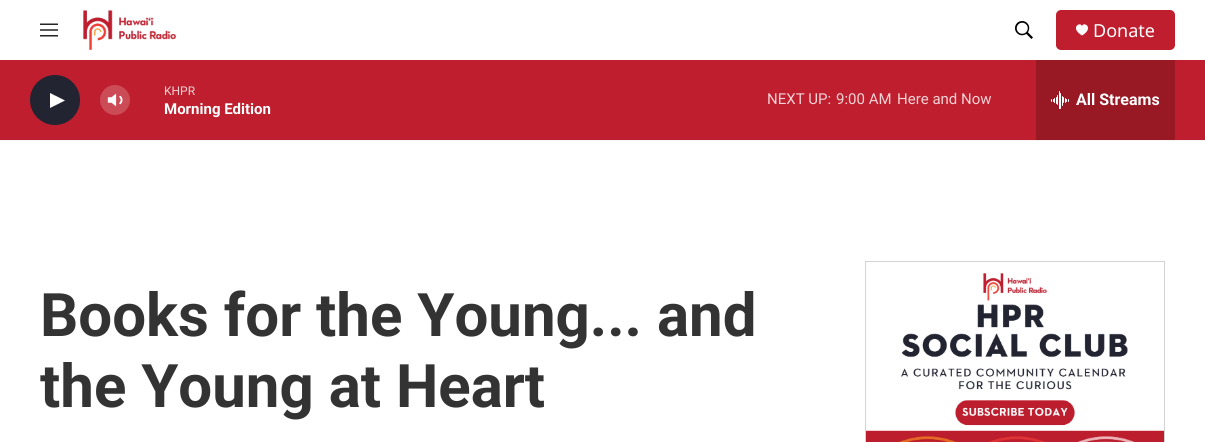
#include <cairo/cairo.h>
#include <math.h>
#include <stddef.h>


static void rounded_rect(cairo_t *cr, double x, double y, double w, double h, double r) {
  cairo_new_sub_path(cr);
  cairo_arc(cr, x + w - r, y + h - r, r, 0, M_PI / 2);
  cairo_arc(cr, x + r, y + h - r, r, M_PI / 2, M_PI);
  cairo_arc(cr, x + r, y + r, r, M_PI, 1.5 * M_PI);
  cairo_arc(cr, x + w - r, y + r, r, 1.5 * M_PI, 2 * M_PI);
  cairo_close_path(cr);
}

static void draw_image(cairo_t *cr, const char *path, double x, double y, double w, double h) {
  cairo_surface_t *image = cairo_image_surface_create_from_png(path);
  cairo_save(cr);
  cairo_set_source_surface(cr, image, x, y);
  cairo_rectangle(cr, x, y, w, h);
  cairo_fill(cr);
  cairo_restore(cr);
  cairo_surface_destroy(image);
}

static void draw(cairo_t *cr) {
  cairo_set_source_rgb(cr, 1, 1, 1);
  cairo_paint(cr);
  cairo_set_source_rgb(cr, 245 / 255.0, 245 / 255.0, 245 / 255.0);
  cairo_rectangle(cr, 0, 140, 1205, 1);
  cairo_fill(cr);
  draw_image(cr, "images/1.png", 40, 23, 18, 14);
  draw_image(cr, "images/2.png", 83, 10, 93, 40);
  draw_image(cr, "images/3.png", 1015, 21, 18, 18);
  cairo_set_source_rgb(cr, 190 / 255.0, 30 / 255.0, 45 / 255.0);
  rounded_rect(cr, 1056, 10, 119, 40, 5);
  cairo_fill(cr);
  cairo_set_source_rgb(cr, 1, 1, 1);
  cairo_new_path(cr);
  cairo_move_to(cr, 1082, 26);
  cairo_curve_to(cr, 1080, 21, 1069.5, 28, 1082, 35.5);
  cairo_curve_to(cr, 1094.5, 28, 1084, 21, 1082, 26);
  cairo_close_path(cr);
  cairo_fill(cr);
  cairo_set_source_rgb(cr, 190 / 255.0, 30 / 255.0, 45 / 255.0);
  cairo_rectangle(cr, 0, 60, 1205, 80);
  cairo_fill(cr);
  cairo_set_source_rgb(cr, 34 / 255.0, 36 / 255.0, 49 / 255.0);
  cairo_arc(cr, 55, 100, 25, 0, 2 * M_PI);
  cairo_fill(cr);
  cairo_set_source_rgb(cr, 1, 1, 1);
  cairo_new_path(cr);
  cairo_move_to(cr, 50, 93);
  cairo_line_to(cr, 65, 100.5);
  cairo_line_to(cr, 50, 108);
  cairo_close_path(cr);
  cairo_fill(cr);
  draw_image(cr, "images/4.png", 107, 93, 16, 14);
  cairo_set_source_rgba(cr, 1, 1, 1, 0.2);
  cairo_arc(cr, 115, 100, 15, 0, 2 * M_PI);
  cairo_fill(cr);
  cairo_set_source_rgb(cr, 152 / 255.0, 24 / 255.0, 36 / 255.0);
  cairo_rectangle(cr, 1036, 60, 139, 80);
  cairo_fill(cr);
  draw_image(cr, "images/5.png", 1051, 91, 18, 18);
  cairo_rectangle(cr, 865.5, 261.5, 299, 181);
  cairo_set_source_rgb(cr, 211 / 255.0, 211 / 255.0, 211 / 255.0);
  cairo_set_line_width(cr, 1);
  cairo_stroke(cr);
  draw_image(cr, "images/6.png", 866, 273, 298, 169);
  cairo_select_font_face(cr, "Noto Sans", CAIRO_FONT_SLANT_NORMAL, CAIRO_FONT_WEIGHT_NORMAL);
  cairo_set_font_size(cr, 18);
  cairo_set_source_rgb(cr, 1, 1, 1);
  cairo_move_to(cr, 1093, 37);
  cairo_show_text(cr, "Donate");
  cairo_select_font_face(cr, "Roboto", CAIRO_FONT_SLANT_NORMAL, CAIRO_FONT_WEIGHT_NORMAL);
  cairo_set_font_size(cr, 12);
  cairo_set_source_rgb(cr, 242 / 255.0, 210 / 255.0, 213 / 255.0);
  cairo_move_to(cr, 164, 95);
  cairo_show_text(cr, "KHPR");
  cairo_select_font_face(cr, "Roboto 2", CAIRO_FONT_SLANT_NORMAL, CAIRO_FONT_WEIGHT_BOLD);
  cairo_set_font_size(cr, 15);
  cairo_set_source_rgb(cr, 1, 1, 1);
  cairo_move_to(cr, 164, 114);
  cairo_show_text(cr, "Morning Edition");
  cairo_select_font_face(cr, "Roboto", CAIRO_FONT_SLANT_NORMAL, CAIRO_FONT_WEIGHT_NORMAL);
  cairo_set_source_rgb(cr, 242 / 255.0, 210 / 255.0, 213 / 255.0);
  cairo_move_to(cr, 767, 104);
  cairo_show_text(cr, "NEXT UP:");
  cairo_move_to(cr, 836, 104);
  cairo_show_text(cr, "9:00 AM");
  cairo_move_to(cr, 897, 104);
  cairo_show_text(cr, "Here and Now");
  cairo_select_font_face(cr, "Roboto 2", CAIRO_FONT_SLANT_NORMAL, CAIRO_FONT_WEIGHT_BOLD);
  cairo_set_font_size(cr, 16);
  cairo_set_source_rgb(cr, 1, 1, 1);
  cairo_move_to(cr, 1076, 105);
  cairo_show_text(cr, "All Streams");
  cairo_select_font_face(cr, "Roboto", CAIRO_FONT_SLANT_NORMAL, CAIRO_FONT_WEIGHT_BOLD);
  cairo_set_font_size(cr, 60);
  cairo_set_source_rgb(cr, 51 / 255.0, 51 / 255.0, 51 / 255.0);
  cairo_move_to(cr, 40, 336);
  cairo_show_text(cr, "Books for the Young... and");
  cairo_move_to(cr, 40, 407);
  cairo_show_text(cr, "the Young at Heart");
}

int main(void) {
  cairo_surface_t *surface = cairo_image_surface_create(CAIRO_FORMAT_RGB24, 1205, 442);
  cairo_t *cr = cairo_create(surface);
  cairo_font_options_t *options = cairo_font_options_create();
  cairo_font_options_set_hint_metrics(options, CAIRO_HINT_METRICS_OFF);
  cairo_font_options_set_hint_style(options, CAIRO_HINT_STYLE_NONE);
  cairo_set_font_options(cr, options);
  cairo_set_miter_limit(cr, 4);
  draw(cr);
  cairo_surface_write_to_png(surface, "out.png");
  cairo_font_options_destroy(options);
  cairo_destroy(cr);
  cairo_surface_destroy(surface);
  return 0;
}
